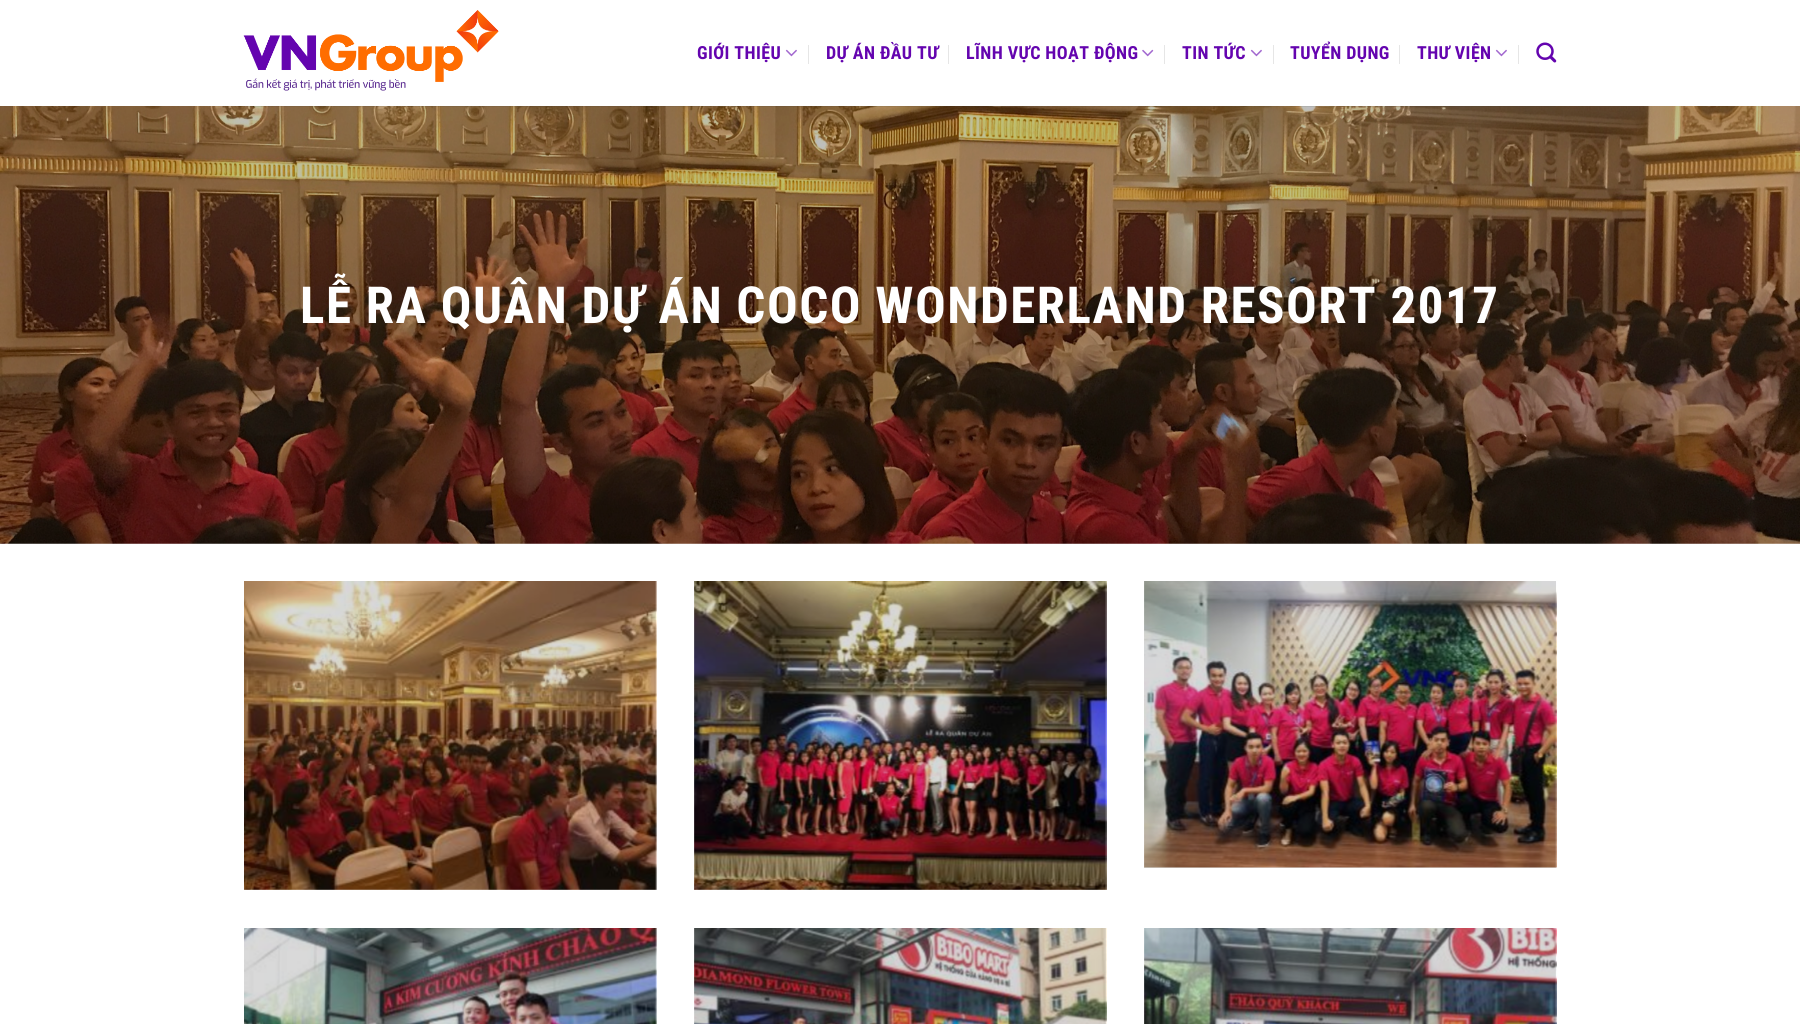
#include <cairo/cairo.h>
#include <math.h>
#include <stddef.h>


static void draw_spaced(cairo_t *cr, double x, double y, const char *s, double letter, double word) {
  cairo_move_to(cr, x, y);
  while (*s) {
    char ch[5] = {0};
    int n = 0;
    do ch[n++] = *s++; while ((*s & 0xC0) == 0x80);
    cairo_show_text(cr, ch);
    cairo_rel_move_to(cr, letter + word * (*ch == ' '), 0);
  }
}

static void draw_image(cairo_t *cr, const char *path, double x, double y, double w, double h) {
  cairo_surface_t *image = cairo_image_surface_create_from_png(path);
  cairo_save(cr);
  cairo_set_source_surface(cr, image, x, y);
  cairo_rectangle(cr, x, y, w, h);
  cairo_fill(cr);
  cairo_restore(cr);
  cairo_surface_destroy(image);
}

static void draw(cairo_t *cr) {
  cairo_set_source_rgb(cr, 1, 1, 1);
  cairo_paint(cr);
  cairo_set_source_rgb(cr, 217 / 255.0, 217 / 255.0, 217 / 255.0);
  cairo_rectangle(cr, 1144, 581, 412, 287);
  cairo_fill(cr);
  draw_image(cr, "images/1.png", 243, 10, 256, 81);
  draw_image(cr, "images/2.png", 785, 49, 12, 8);
  cairo_set_source_rgb(cr, 230 / 255.0, 230 / 255.0, 230 / 255.0);
  cairo_rectangle(cr, 808, 45, 1, 19);
  cairo_fill(cr);
  cairo_rectangle(cr, 948, 45, 1, 19);
  cairo_fill(cr);
  draw_image(cr, "images/3.png", 1142, 49, 12, 8);
  cairo_rectangle(cr, 1164, 45, 1, 19);
  cairo_fill(cr);
  draw_image(cr, "images/2.png", 1250, 49, 12, 8);
  cairo_rectangle(cr, 1273, 45, 1, 19);
  cairo_fill(cr);
  cairo_rectangle(cr, 1399, 45, 1, 19);
  cairo_fill(cr);
  draw_image(cr, "images/2.png", 1495, 49, 12, 8);
  cairo_rectangle(cr, 1518, 45, 1, 19);
  cairo_fill(cr);
  draw_image(cr, "images/4.png", 1536, 42, 21, 21);
  draw_image(cr, "images/5.png", 0, 106, 1800, 438);
  cairo_set_source_rgba(cr, 51 / 255.0, 51 / 255.0, 51 / 255.0, 0.1);
  cairo_rectangle(cr, 244, 106, 1312, 1);
  cairo_fill(cr);
  draw_image(cr, "images/6.png", 244, 581, 413, 309);
  draw_image(cr, "images/7.png", 694, 581, 413, 309);
  draw_image(cr, "images/8.png", 1144, 581, 413, 287);
  draw_image(cr, "images/9.png", 244, 928, 413, 96);
  draw_image(cr, "images/10.png", 694, 928, 413, 96);
  draw_image(cr, "images/11.png", 1144, 928, 413, 96);
  cairo_select_font_face(cr, "Roboto Condensed", CAIRO_FONT_SLANT_NORMAL, CAIRO_FONT_WEIGHT_BOLD);
  cairo_set_font_size(cr, 18);
  cairo_set_source_rgb(cr, 100 / 255.0, 4 / 255.0, 175 / 255.0);
  draw_spaced(cr, 697, 59, "GIỚI THIỆU", 0.4, 0);
  draw_spaced(cr, 826, 59, "DỰ ÁN ĐẦU TƯ", 0.4, 0);
  draw_spaced(cr, 966, 59, "LĨNH VỰC HOẠT ĐỘNG", 0.4, 0);
  draw_spaced(cr, 1182, 59, "TIN TỨC", 0.4, 0);
  draw_spaced(cr, 1290, 59, "TUYỂN DỤNG", 0.4, 0);
  draw_spaced(cr, 1417, 59, "THƯ VIỆN", 0.4, 0);
  cairo_set_font_size(cr, 51);
  cairo_set_source_rgb(cr, 1, 1, 1);
  draw_spaced(cr, 300, 323, "LỄ RA QUÂN DỰ ÁN COCO WONDERLAND RESORT 2017", 1.5, 0);
}

int main(void) {
  cairo_surface_t *surface = cairo_image_surface_create(CAIRO_FORMAT_RGB24, 1800, 1024);
  cairo_t *cr = cairo_create(surface);
  cairo_font_options_t *options = cairo_font_options_create();
  cairo_font_options_set_hint_metrics(options, CAIRO_HINT_METRICS_OFF);
  cairo_font_options_set_hint_style(options, CAIRO_HINT_STYLE_NONE);
  cairo_set_font_options(cr, options);
  cairo_set_miter_limit(cr, 4);
  draw(cr);
  cairo_surface_write_to_png(surface, "out.png");
  cairo_font_options_destroy(options);
  cairo_destroy(cr);
  cairo_surface_destroy(surface);
  return 0;
}
